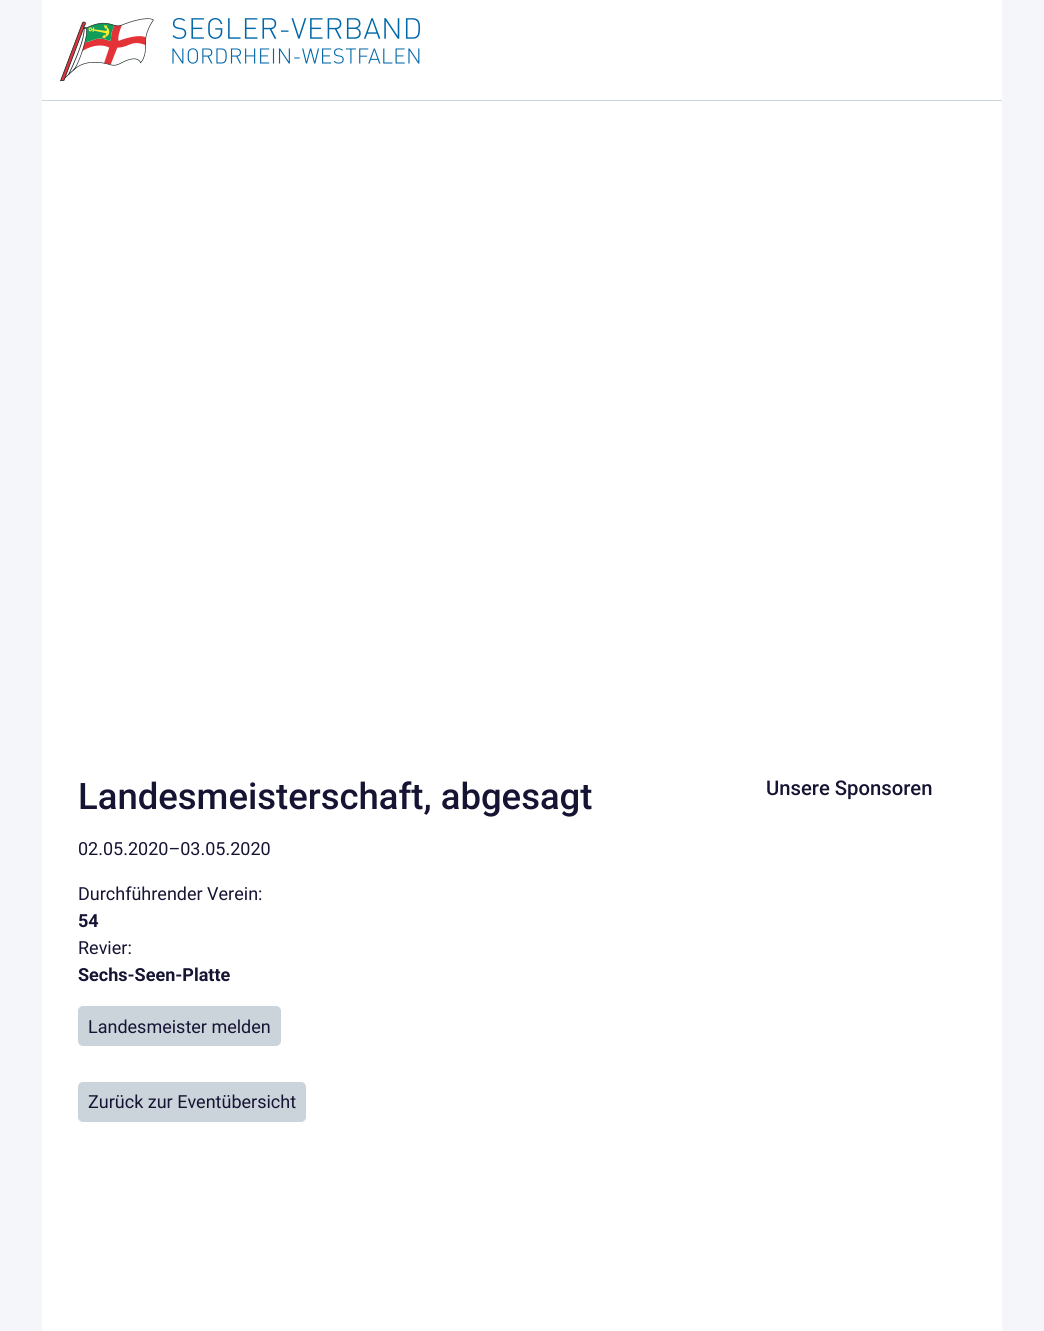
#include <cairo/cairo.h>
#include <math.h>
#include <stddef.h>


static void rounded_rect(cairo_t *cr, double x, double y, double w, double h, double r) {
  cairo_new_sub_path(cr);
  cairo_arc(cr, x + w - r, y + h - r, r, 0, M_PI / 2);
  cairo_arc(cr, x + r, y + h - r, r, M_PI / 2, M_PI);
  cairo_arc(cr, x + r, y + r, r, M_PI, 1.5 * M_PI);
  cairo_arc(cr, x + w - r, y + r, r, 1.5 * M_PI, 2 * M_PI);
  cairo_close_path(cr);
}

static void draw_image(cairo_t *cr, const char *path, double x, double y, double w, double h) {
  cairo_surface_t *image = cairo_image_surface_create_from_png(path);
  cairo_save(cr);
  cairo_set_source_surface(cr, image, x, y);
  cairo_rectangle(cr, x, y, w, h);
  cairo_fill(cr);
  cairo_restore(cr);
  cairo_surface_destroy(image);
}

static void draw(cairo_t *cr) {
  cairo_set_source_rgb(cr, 245 / 255.0, 246 / 255.0, 250 / 255.0);
  cairo_paint(cr);
  cairo_set_source_rgb(cr, 1, 1, 1);
  cairo_rectangle(cr, 42, 0, 960, 1331);
  cairo_fill(cr);
  cairo_set_source_rgb(cr, 204 / 255.0, 212 / 255.0, 219 / 255.0);
  cairo_rectangle(cr, 42, 100, 960, 1);
  cairo_fill(cr);
  draw_image(cr, "images/1.png", 60, 18, 360, 64);
  rounded_rect(cr, 78.5, 1006.5, 202, 39, 4.5);
  cairo_fill_preserve(cr);
  cairo_set_line_width(cr, 1);
  cairo_stroke(cr);
  rounded_rect(cr, 78.5, 1082.5, 227, 39, 4.5);
  cairo_fill_preserve(cr);
  cairo_stroke(cr);
  cairo_select_font_face(cr, "Roboto Medium", CAIRO_FONT_SLANT_NORMAL, CAIRO_FONT_WEIGHT_NORMAL);
  cairo_set_font_size(cr, 36.5);
  cairo_set_source_rgb(cr, 22 / 255.0, 20 / 255.0, 51 / 255.0);
  cairo_move_to(cr, 78, 809);
  cairo_show_text(cr, "Landesmeisterschaft, abgesagt");
  cairo_select_font_face(cr, "Roboto", CAIRO_FONT_SLANT_NORMAL, CAIRO_FONT_WEIGHT_NORMAL);
  cairo_set_font_size(cr, 18);
  cairo_move_to(cr, 78, 855);
  cairo_show_text(cr, "02.05.2020–03.05.2020");
  cairo_move_to(cr, 78, 900);
  cairo_show_text(cr, "Durchführender Verein:");
  cairo_select_font_face(cr, "Roboto", CAIRO_FONT_SLANT_NORMAL, CAIRO_FONT_WEIGHT_BOLD);
  cairo_move_to(cr, 78, 927);
  cairo_show_text(cr, "54");
  cairo_select_font_face(cr, "Roboto", CAIRO_FONT_SLANT_NORMAL, CAIRO_FONT_WEIGHT_NORMAL);
  cairo_move_to(cr, 78, 954);
  cairo_show_text(cr, "Revier:");
  cairo_select_font_face(cr, "Roboto", CAIRO_FONT_SLANT_NORMAL, CAIRO_FONT_WEIGHT_BOLD);
  cairo_move_to(cr, 78, 981);
  cairo_show_text(cr, "Sechs-Seen-Platte");
  cairo_select_font_face(cr, "Roboto", CAIRO_FONT_SLANT_NORMAL, CAIRO_FONT_WEIGHT_NORMAL);
  cairo_move_to(cr, 88, 1033);
  cairo_show_text(cr, "Landesmeister melden");
  cairo_move_to(cr, 88, 1108);
  cairo_show_text(cr, "Zurück zur Eventübersicht");
  cairo_select_font_face(cr, "Roboto Medium", CAIRO_FONT_SLANT_NORMAL, CAIRO_FONT_WEIGHT_NORMAL);
  cairo_set_font_size(cr, 20.25);
  cairo_move_to(cr, 766, 795);
  cairo_show_text(cr, "Unsere Sponsoren");
}

int main(void) {
  cairo_surface_t *surface = cairo_image_surface_create(CAIRO_FORMAT_RGB24, 1044, 1331);
  cairo_t *cr = cairo_create(surface);
  cairo_font_options_t *options = cairo_font_options_create();
  cairo_font_options_set_hint_metrics(options, CAIRO_HINT_METRICS_OFF);
  cairo_font_options_set_hint_style(options, CAIRO_HINT_STYLE_NONE);
  cairo_set_font_options(cr, options);
  cairo_set_miter_limit(cr, 4);
  draw(cr);
  cairo_surface_write_to_png(surface, "out.png");
  cairo_font_options_destroy(options);
  cairo_destroy(cr);
  cairo_surface_destroy(surface);
  return 0;
}
